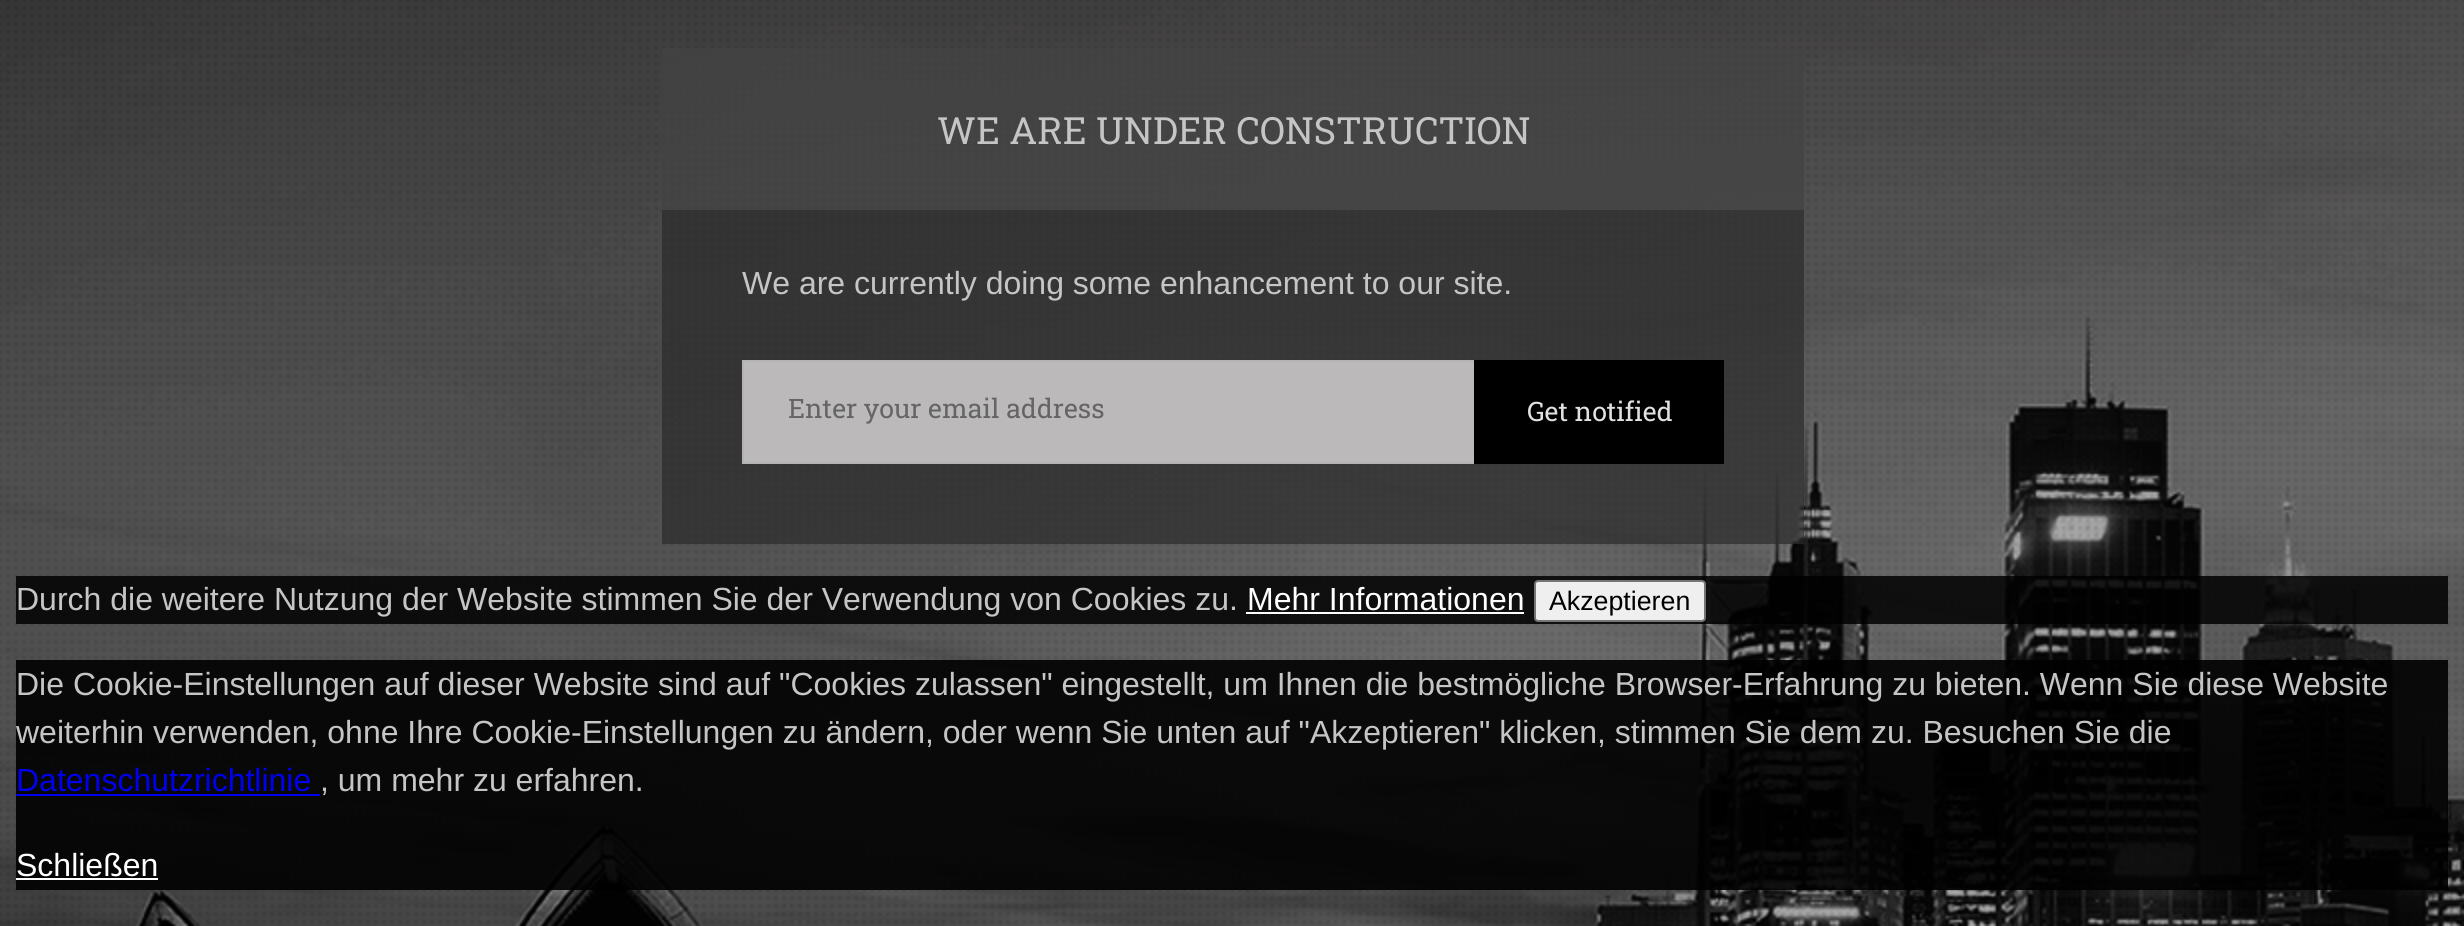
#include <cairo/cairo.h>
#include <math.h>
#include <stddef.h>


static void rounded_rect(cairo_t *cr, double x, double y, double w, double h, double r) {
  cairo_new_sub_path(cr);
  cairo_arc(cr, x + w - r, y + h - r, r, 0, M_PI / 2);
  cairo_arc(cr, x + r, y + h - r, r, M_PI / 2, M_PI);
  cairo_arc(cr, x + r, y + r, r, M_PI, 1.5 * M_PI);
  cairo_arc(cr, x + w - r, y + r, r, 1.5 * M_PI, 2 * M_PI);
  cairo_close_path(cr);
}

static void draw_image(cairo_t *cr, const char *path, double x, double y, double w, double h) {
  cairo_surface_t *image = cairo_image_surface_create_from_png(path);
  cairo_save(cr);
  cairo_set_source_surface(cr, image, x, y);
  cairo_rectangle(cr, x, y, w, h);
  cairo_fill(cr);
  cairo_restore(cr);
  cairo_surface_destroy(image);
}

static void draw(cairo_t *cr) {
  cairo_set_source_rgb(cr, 1, 1, 1);
  cairo_paint(cr);
  draw_image(cr, "images/1.png", 0, 0, 2464, 926);
  cairo_set_source_rgba(cr, 44 / 255.0, 44 / 255.0, 44 / 255.0, 0.7);
  cairo_rectangle(cr, 662, 48, 1142, 496);
  cairo_fill(cr);
  cairo_set_source_rgba(cr, 136 / 255.0, 136 / 255.0, 136 / 255.0, 0.2);
  cairo_rectangle(cr, 662, 48, 1142, 162);
  cairo_fill(cr);
  cairo_set_source_rgb(cr, 187 / 255.0, 185 / 255.0, 185 / 255.0);
  cairo_rectangle(cr, 744, 362, 730, 100);
  cairo_fill(cr);
  cairo_rectangle(cr, 743, 361, 980, 102);
  cairo_set_source_rgb(cr, 180 / 255.0, 180 / 255.0, 180 / 255.0);
  cairo_stroke(cr);
  cairo_set_source_rgb(cr, 0, 0, 0);
  cairo_rectangle(cr, 1474, 360, 250, 104);
  cairo_fill(cr);
  cairo_set_source_rgba(cr, 0, 0, 0, 0.85);
  cairo_rectangle(cr, 16, 576, 2432, 48);
  cairo_fill(cr);
  cairo_set_source_rgb(cr, 1, 1, 1);
  cairo_rectangle(cr, 1246, 612, 278, 2);
  cairo_fill(cr);
  cairo_set_source_rgb(cr, 239 / 255.0, 239 / 255.0, 239 / 255.0);
  rounded_rect(cr, 1535, 581, 170, 40, 3);
  cairo_fill_preserve(cr);
  cairo_set_source_rgb(cr, 118 / 255.0, 118 / 255.0, 118 / 255.0);
  cairo_stroke(cr);
  cairo_set_source_rgba(cr, 0, 0, 0, 0.9);
  cairo_rectangle(cr, 16, 660, 2432, 230);
  cairo_fill(cr);
  cairo_set_source_rgb(cr, 0, 0, 238 / 255.0);
  cairo_rectangle(cr, 16, 794, 304, 2);
  cairo_fill(cr);
  cairo_set_source_rgb(cr, 1, 1, 1);
  cairo_rectangle(cr, 16, 878, 142, 2);
  cairo_fill(cr);
  cairo_select_font_face(cr, "Roboto Slab", CAIRO_FONT_SLANT_NORMAL, CAIRO_FONT_WEIGHT_NORMAL);
  cairo_set_font_size(cr, 37.5);
  cairo_set_source_rgb(cr, 197 / 255.0, 197 / 255.0, 197 / 255.0);
  cairo_move_to(cr, 937, 144);
  cairo_show_text(cr, "WE ARE UNDER CONSTRUCTION");
  cairo_select_font_face(cr, "Liberation Sans", CAIRO_FONT_SLANT_NORMAL, CAIRO_FONT_WEIGHT_NORMAL);
  cairo_set_font_size(cr, 32);
  cairo_move_to(cr, 742, 294);
  cairo_show_text(cr, "We are currently doing some enhancement to our site.");
  cairo_select_font_face(cr, "Roboto Slab", CAIRO_FONT_SLANT_NORMAL, CAIRO_FONT_WEIGHT_NORMAL);
  cairo_set_font_size(cr, 26.75);
  cairo_set_source_rgb(cr, 101 / 255.0, 101 / 255.0, 101 / 255.0);
  cairo_move_to(cr, 788, 418);
  cairo_show_text(cr, "Enter your email address");
  cairo_set_source_rgb(cr, 225 / 255.0, 225 / 255.0, 225 / 255.0);
  cairo_move_to(cr, 1527, 421);
  cairo_show_text(cr, "Get notified");
  cairo_select_font_face(cr, "Liberation Sans", CAIRO_FONT_SLANT_NORMAL, CAIRO_FONT_WEIGHT_NORMAL);
  cairo_set_font_size(cr, 32);
  cairo_set_source_rgb(cr, 197 / 255.0, 197 / 255.0, 197 / 255.0);
  cairo_move_to(cr, 16, 610);
  cairo_show_text(cr, "Durch die weitere Nutzung der Website stimmen Sie der Verwendung von Cookies zu.");
  cairo_set_source_rgb(cr, 1, 1, 1);
  cairo_move_to(cr, 1247, 610);
  cairo_show_text(cr, "Mehr Informationen");
  cairo_set_font_size(cr, 26.75);
  cairo_set_source_rgb(cr, 0, 0, 0);
  cairo_move_to(cr, 1549, 610);
  cairo_show_text(cr, "Akzeptieren");
  cairo_set_font_size(cr, 32);
  cairo_set_source_rgb(cr, 197 / 255.0, 197 / 255.0, 197 / 255.0);
  cairo_move_to(cr, 16, 695);
  cairo_show_text(cr, "Die Cookie-Einstellungen auf dieser Website sind auf \"Cookies zulassen\" eingestellt, um Ihnen die bestmögliche Browser-Erfahrung zu bieten. Wenn Sie diese Website");
  cairo_move_to(cr, 16, 743);
  cairo_show_text(cr, "weiterhin verwenden, ohne Ihre Cookie-Einstellungen zu ändern, oder wenn Sie unten auf \"Akzeptieren\" klicken, stimmen Sie dem zu. Besuchen Sie die");
  cairo_set_source_rgb(cr, 0, 0, 238 / 255.0);
  cairo_move_to(cr, 16, 791);
  cairo_show_text(cr, "Datenschutzrichtlinie");
  cairo_set_source_rgb(cr, 197 / 255.0, 197 / 255.0, 197 / 255.0);
  cairo_move_to(cr, 320, 791);
  cairo_show_text(cr, ", um mehr zu erfahren.");
  cairo_set_source_rgb(cr, 1, 1, 1);
  cairo_move_to(cr, 16, 876);
  cairo_show_text(cr, "Schließen");
}

int main(void) {
  cairo_surface_t *surface = cairo_image_surface_create(CAIRO_FORMAT_RGB24, 2464, 926);
  cairo_t *cr = cairo_create(surface);
  cairo_font_options_t *options = cairo_font_options_create();
  cairo_font_options_set_hint_metrics(options, CAIRO_HINT_METRICS_OFF);
  cairo_font_options_set_hint_style(options, CAIRO_HINT_STYLE_NONE);
  cairo_set_font_options(cr, options);
  cairo_set_miter_limit(cr, 4);
  draw(cr);
  cairo_surface_write_to_png(surface, "out.png");
  cairo_font_options_destroy(options);
  cairo_destroy(cr);
  cairo_surface_destroy(surface);
  return 0;
}
